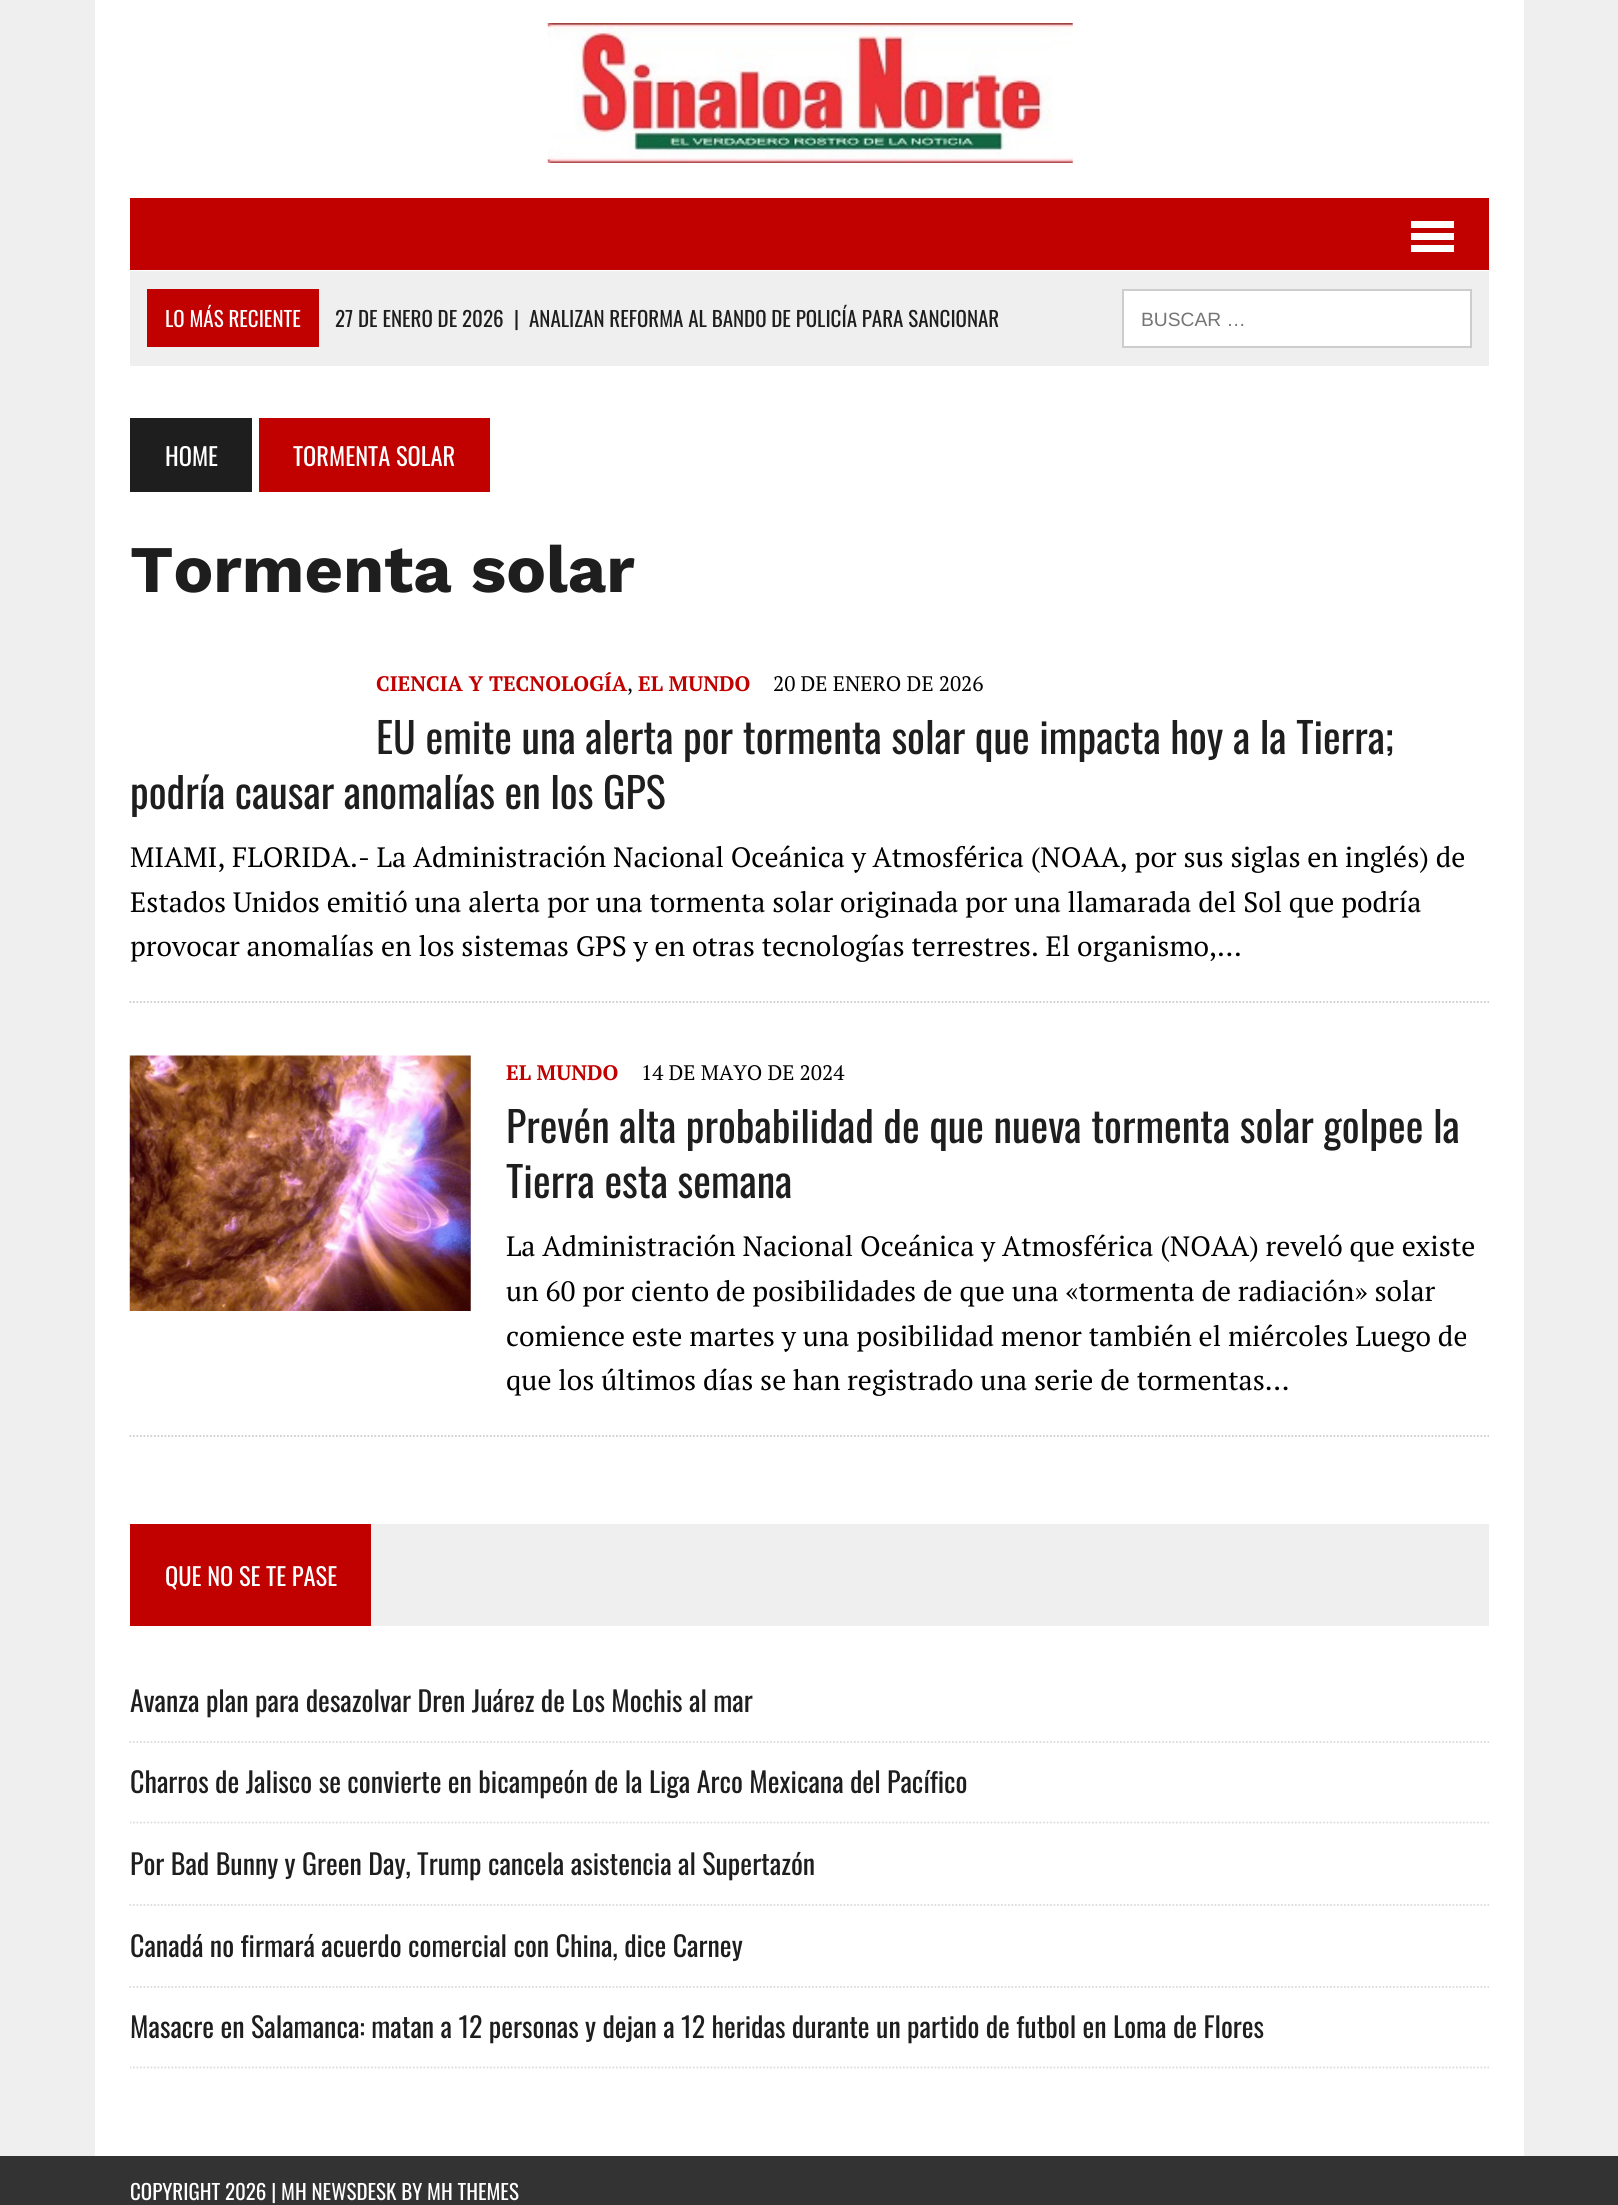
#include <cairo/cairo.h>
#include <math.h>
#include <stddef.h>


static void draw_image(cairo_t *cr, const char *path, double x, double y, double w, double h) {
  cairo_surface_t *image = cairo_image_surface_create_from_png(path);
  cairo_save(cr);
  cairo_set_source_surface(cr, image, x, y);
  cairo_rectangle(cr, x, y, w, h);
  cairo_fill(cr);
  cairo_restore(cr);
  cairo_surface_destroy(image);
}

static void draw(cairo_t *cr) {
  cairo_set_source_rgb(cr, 239 / 255.0, 239 / 255.0, 239 / 255.0);
  cairo_paint(cr);
  cairo_set_source_rgb(cr, 1, 1, 1);
  cairo_rectangle(cr, 95, 0, 1429, 2156);
  cairo_fill(cr);
  draw_image(cr, "images/1.png", 547, 23, 526, 140);
  cairo_set_source_rgb(cr, 193 / 255.0, 0, 0);
  cairo_rectangle(cr, 130, 198, 1359, 72);
  cairo_fill(cr);
  cairo_set_source_rgb(cr, 1, 1, 1);
  cairo_rectangle(cr, 1411, 221, 43, 7);
  cairo_fill(cr);
  cairo_rectangle(cr, 1411, 233, 43, 7);
  cairo_fill(cr);
  cairo_rectangle(cr, 1411, 245, 43, 7);
  cairo_fill(cr);
  cairo_set_source_rgb(cr, 239 / 255.0, 239 / 255.0, 239 / 255.0);
  cairo_rectangle(cr, 130, 271, 1359, 95);
  cairo_fill(cr);
  cairo_set_source_rgb(cr, 193 / 255.0, 0, 0);
  cairo_rectangle(cr, 147, 289, 172, 58);
  cairo_fill(cr);
  cairo_set_source_rgb(cr, 1, 1, 1);
  cairo_rectangle(cr, 1123, 290, 348, 57);
  cairo_fill_preserve(cr);
  cairo_set_source_rgb(cr, 205 / 255.0, 205 / 255.0, 205 / 255.0);
  cairo_stroke(cr);
  cairo_set_source_rgb(cr, 31 / 255.0, 30 / 255.0, 30 / 255.0);
  cairo_rectangle(cr, 130, 418, 122, 74);
  cairo_fill(cr);
  cairo_set_source_rgb(cr, 193 / 255.0, 0, 0);
  cairo_rectangle(cr, 259, 418, 231, 74);
  cairo_fill(cr);
  cairo_new_path(cr);
  cairo_move_to(cr, 129.5, 1002);
  cairo_line_to(cr, 1489, 1002);
  cairo_set_source_rgb(cr, 205 / 255.0, 205 / 255.0, 205 / 255.0);
  cairo_set_line_width(cr, 1.8);
  cairo_set_dash(cr, (double[]){1.75, 1.75}, 2, 0);
  cairo_stroke(cr);
  draw_image(cr, "images/2.png", 129, 1055, 342, 256);
  cairo_new_path(cr);
  cairo_move_to(cr, 129.5, 1436);
  cairo_line_to(cr, 1489, 1436);
  cairo_stroke(cr);
  cairo_set_source_rgb(cr, 239 / 255.0, 239 / 255.0, 239 / 255.0);
  cairo_rectangle(cr, 371, 1524, 1118, 102);
  cairo_fill(cr);
  cairo_set_source_rgb(cr, 193 / 255.0, 0, 0);
  cairo_rectangle(cr, 130, 1524, 241, 102);
  cairo_fill(cr);
  cairo_new_path(cr);
  cairo_move_to(cr, 129.5, 1742);
  cairo_line_to(cr, 1489, 1742);
  cairo_set_source_rgb(cr, 220 / 255.0, 220 / 255.0, 220 / 255.0);
  cairo_stroke(cr);
  cairo_save(cr);
  cairo_rectangle(cr, 130, 1524, 1359, 545);
  cairo_clip(cr);
  cairo_new_path(cr);
  cairo_move_to(cr, 129.5, 1822.5);
  cairo_line_to(cr, 1489, 1822.5);
  cairo_stroke(cr);
  cairo_restore(cr);
  cairo_new_path(cr);
  cairo_move_to(cr, 129.5, 1905);
  cairo_line_to(cr, 1489, 1905);
  cairo_stroke(cr);
  cairo_new_path(cr);
  cairo_move_to(cr, 129.5, 1987);
  cairo_line_to(cr, 1489, 1987);
  cairo_stroke(cr);
  cairo_save(cr);
  cairo_rectangle(cr, 130, 1524, 1359, 545);
  cairo_clip(cr);
  cairo_new_path(cr);
  cairo_move_to(cr, 129.5, 2067.5);
  cairo_line_to(cr, 1489, 2067.5);
  cairo_stroke(cr);
  cairo_restore(cr);
  cairo_set_source_rgb(cr, 51 / 255.0, 51 / 255.0, 51 / 255.0);
  cairo_rectangle(cr, 0, 2156, 1618, 49);
  cairo_fill(cr);
  cairo_select_font_face(cr, "Oswald", CAIRO_FONT_SLANT_NORMAL, CAIRO_FONT_WEIGHT_NORMAL);
  cairo_set_font_size(cr, 21);
  cairo_set_source_rgb(cr, 1, 1, 1);
  cairo_move_to(cr, 165, 327);
  cairo_show_text(cr, "LO MÁS RECIENTE");
  cairo_set_source_rgb(cr, 31 / 255.0, 30 / 255.0, 30 / 255.0);
  cairo_move_to(cr, 335, 327);
  cairo_show_text(cr, "27 DE ENERO DE 2026");
  cairo_move_to(cr, 514, 327);
  cairo_show_text(cr, "|");
  cairo_move_to(cr, 529, 327);
  cairo_show_text(cr, "ANALIZAN REFORMA AL BANDO DE POLICÍA PARA SANCIONAR");
  cairo_select_font_face(cr, "Liberation Sans", CAIRO_FONT_SLANT_NORMAL, CAIRO_FONT_WEIGHT_NORMAL);
  cairo_set_font_size(cr, 19.25);
  cairo_set_source_rgb(cr, 117 / 255.0, 117 / 255.0, 117 / 255.0);
  cairo_move_to(cr, 1141, 326);
  cairo_show_text(cr, "BUSCAR …");
  cairo_select_font_face(cr, "Oswald", CAIRO_FONT_SLANT_NORMAL, CAIRO_FONT_WEIGHT_NORMAL);
  cairo_set_font_size(cr, 24.5);
  cairo_set_source_rgb(cr, 1, 1, 1);
  cairo_move_to(cr, 165, 466);
  cairo_show_text(cr, "HOME");
  cairo_move_to(cr, 293, 466);
  cairo_show_text(cr, "TORMENTA SOLAR");
  cairo_select_font_face(cr, "Work Sans", CAIRO_FONT_SLANT_NORMAL, CAIRO_FONT_WEIGHT_BOLD);
  cairo_set_font_size(cr, 66.5);
  cairo_set_source_rgb(cr, 31 / 255.0, 30 / 255.0, 30 / 255.0);
  cairo_move_to(cr, 130, 592);
  cairo_show_text(cr, "Tormenta solar");
  cairo_select_font_face(cr, "PT Serif", CAIRO_FONT_SLANT_NORMAL, CAIRO_FONT_WEIGHT_BOLD);
  cairo_set_font_size(cr, 21);
  cairo_set_source_rgb(cr, 193 / 255.0, 0, 0);
  cairo_move_to(cr, 376, 691);
  cairo_show_text(cr, "CIENCIA Y TECNOLOGÍA");
  cairo_select_font_face(cr, "PT Serif", CAIRO_FONT_SLANT_NORMAL, CAIRO_FONT_WEIGHT_NORMAL);
  cairo_set_source_rgb(cr, 0, 0, 0);
  cairo_move_to(cr, 627, 691);
  cairo_show_text(cr, ",");
  cairo_select_font_face(cr, "PT Serif", CAIRO_FONT_SLANT_NORMAL, CAIRO_FONT_WEIGHT_BOLD);
  cairo_set_source_rgb(cr, 193 / 255.0, 0, 0);
  cairo_move_to(cr, 638, 691);
  cairo_show_text(cr, "EL MUNDO");
  cairo_select_font_face(cr, "PT Serif", CAIRO_FONT_SLANT_NORMAL, CAIRO_FONT_WEIGHT_NORMAL);
  cairo_set_source_rgb(cr, 0, 0, 0);
  cairo_move_to(cr, 773, 691);
  cairo_show_text(cr, "20 DE ENERO DE 2026");
  cairo_select_font_face(cr, "Oswald", CAIRO_FONT_SLANT_NORMAL, CAIRO_FONT_WEIGHT_NORMAL);
  cairo_set_font_size(cr, 42);
  cairo_set_source_rgb(cr, 31 / 255.0, 30 / 255.0, 30 / 255.0);
  cairo_move_to(cr, 376, 754);
  cairo_show_text(cr, "EU emite una alerta por tormenta solar que impacta hoy a la Tierra;");
  cairo_move_to(cr, 130, 809);
  cairo_show_text(cr, "podría causar anomalías en los GPS");
  cairo_select_font_face(cr, "PT Serif", CAIRO_FONT_SLANT_NORMAL, CAIRO_FONT_WEIGHT_NORMAL);
  cairo_set_font_size(cr, 28);
  cairo_set_source_rgb(cr, 0, 0, 0);
  cairo_move_to(cr, 130, 867);
  cairo_show_text(cr, "MIAMI, FLORIDA.- La Administración Nacional Oceánica y Atmosférica (NOAA, por sus siglas en inglés) de");
  cairo_move_to(cr, 130, 912);
  cairo_show_text(cr, "Estados Unidos emitió una alerta por una tormenta solar originada por una llamarada del Sol que podría");
  cairo_move_to(cr, 130, 956);
  cairo_show_text(cr, "provocar anomalías en los sistemas GPS y en otras tecnologías terrestres. El organismo,…");
  cairo_select_font_face(cr, "PT Serif", CAIRO_FONT_SLANT_NORMAL, CAIRO_FONT_WEIGHT_BOLD);
  cairo_set_font_size(cr, 21);
  cairo_set_source_rgb(cr, 193 / 255.0, 0, 0);
  cairo_move_to(cr, 506, 1080);
  cairo_show_text(cr, "EL MUNDO");
  cairo_select_font_face(cr, "PT Serif", CAIRO_FONT_SLANT_NORMAL, CAIRO_FONT_WEIGHT_NORMAL);
  cairo_set_source_rgb(cr, 0, 0, 0);
  cairo_move_to(cr, 641, 1080);
  cairo_show_text(cr, "14 DE MAYO DE 2024");
  cairo_select_font_face(cr, "Oswald", CAIRO_FONT_SLANT_NORMAL, CAIRO_FONT_WEIGHT_NORMAL);
  cairo_set_font_size(cr, 42);
  cairo_set_source_rgb(cr, 31 / 255.0, 30 / 255.0, 30 / 255.0);
  cairo_move_to(cr, 506, 1143);
  cairo_show_text(cr, "Prevén alta probabilidad de que nueva tormenta solar golpee la");
  cairo_move_to(cr, 506, 1198);
  cairo_show_text(cr, "Tierra esta semana");
  cairo_select_font_face(cr, "PT Serif", CAIRO_FONT_SLANT_NORMAL, CAIRO_FONT_WEIGHT_NORMAL);
  cairo_set_font_size(cr, 28);
  cairo_set_source_rgb(cr, 0, 0, 0);
  cairo_move_to(cr, 506, 1256);
  cairo_show_text(cr, "La Administración Nacional Oceánica y Atmosférica (NOAA) reveló que existe");
  cairo_move_to(cr, 506, 1301);
  cairo_show_text(cr, "un 60 por ciento de posibilidades de que una «tormenta de radiación» solar");
  cairo_move_to(cr, 506, 1346);
  cairo_show_text(cr, "comience este martes y una posibilidad menor también el miércoles Luego de");
  cairo_move_to(cr, 506, 1390);
  cairo_show_text(cr, "que los últimos días se han registrado una serie de tormentas…");
  cairo_select_font_face(cr, "Oswald", CAIRO_FONT_SLANT_NORMAL, CAIRO_FONT_WEIGHT_NORMAL);
  cairo_set_font_size(cr, 24.5);
  cairo_set_source_rgb(cr, 1, 1, 1);
  cairo_move_to(cr, 165, 1586);
  cairo_show_text(cr, "QUE NO SE TE PASE");
  cairo_set_font_size(cr, 28);
  cairo_set_source_rgb(cr, 31 / 255.0, 30 / 255.0, 30 / 255.0);
  cairo_move_to(cr, 130, 1712);
  cairo_show_text(cr, "Avanza plan para desazolvar Dren Juárez de Los Mochis al mar");
  cairo_move_to(cr, 130, 1793);
  cairo_show_text(cr, "Charros de Jalisco se convierte en bicampeón de la Liga Arco Mexicana del Pacífico");
  cairo_move_to(cr, 130, 1875);
  cairo_show_text(cr, "Por Bad Bunny y Green Day, Trump cancela asistencia al Supertazón");
  cairo_move_to(cr, 130, 1957);
  cairo_show_text(cr, "Canadá no firmará acuerdo comercial con China, dice Carney");
  cairo_move_to(cr, 130, 2038);
  cairo_show_text(cr, "Masacre en Salamanca: matan a 12 personas y dejan a 12 heridas durante un partido de futbol en Loma de Flores");
  cairo_set_font_size(cr, 21);
  cairo_set_source_rgb(cr, 1, 1, 1);
  cairo_move_to(cr, 130, 2200);
  cairo_show_text(cr, "COPYRIGHT 2026 | MH NEWSDESK BY MH THEMES");
}

int main(void) {
  cairo_surface_t *surface = cairo_image_surface_create(CAIRO_FORMAT_RGB24, 1618, 2205);
  cairo_t *cr = cairo_create(surface);
  cairo_font_options_t *options = cairo_font_options_create();
  cairo_font_options_set_hint_metrics(options, CAIRO_HINT_METRICS_OFF);
  cairo_font_options_set_hint_style(options, CAIRO_HINT_STYLE_NONE);
  cairo_set_font_options(cr, options);
  cairo_set_miter_limit(cr, 4);
  draw(cr);
  cairo_surface_write_to_png(surface, "out.png");
  cairo_font_options_destroy(options);
  cairo_destroy(cr);
  cairo_surface_destroy(surface);
  return 0;
}
